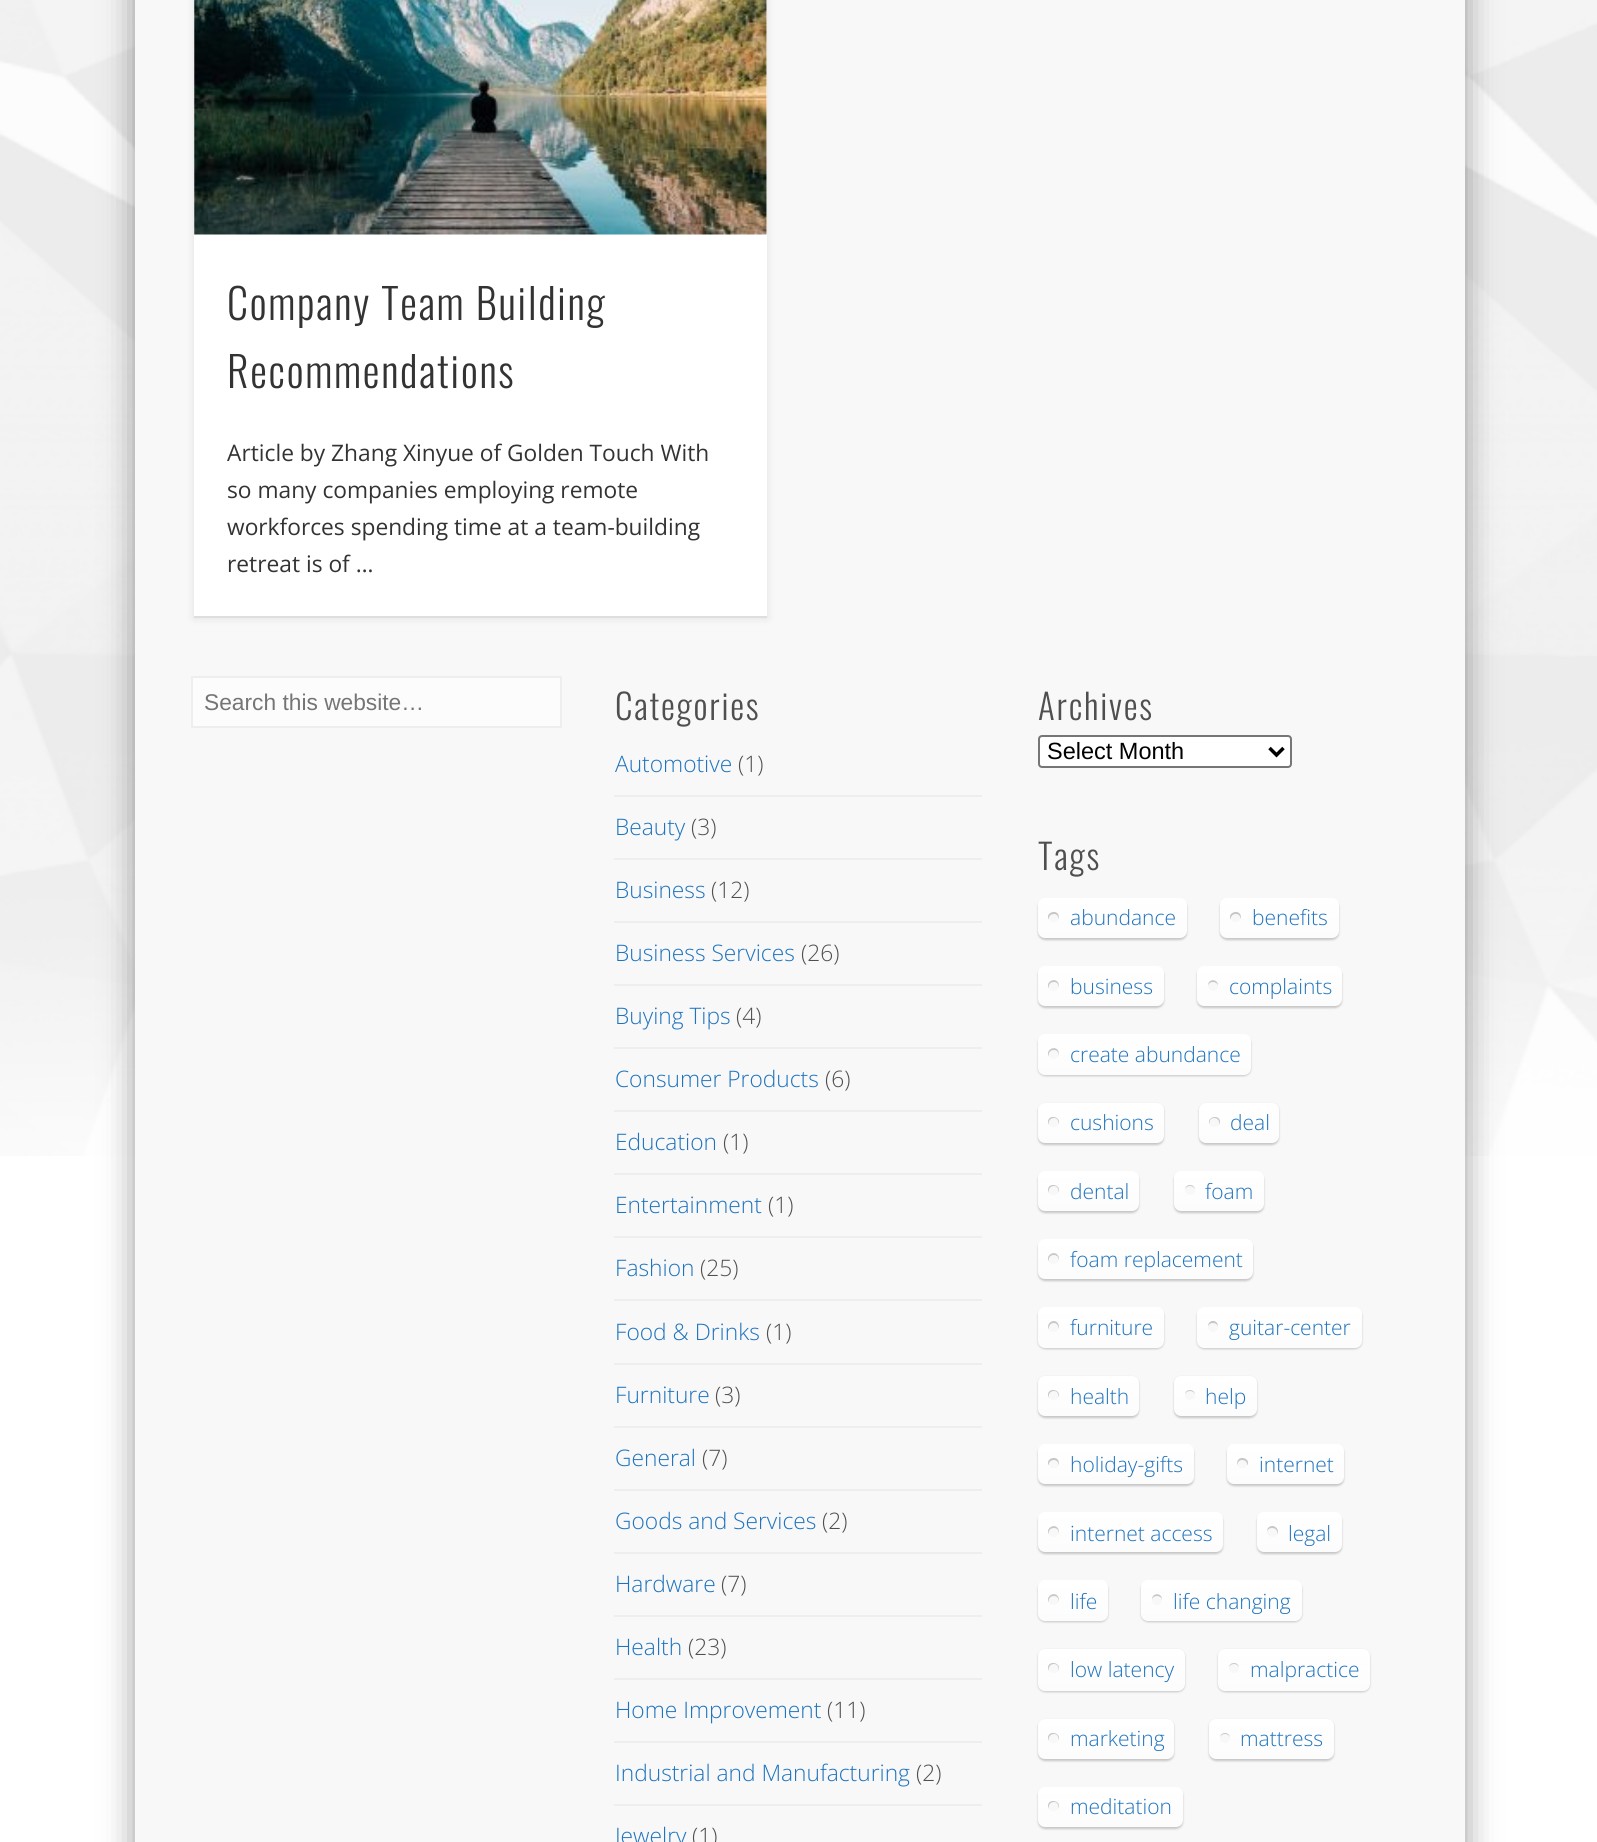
#include <cairo/cairo.h>
#include <math.h>
#include <stddef.h>


static void draw_spaced(cairo_t *cr, double x, double y, const char *s, double letter, double word) {
  cairo_move_to(cr, x, y);
  while (*s) {
    char ch[5] = {0};
    int n = 0;
    do ch[n++] = *s++; while ((*s & 0xC0) == 0x80);
    cairo_show_text(cr, ch);
    cairo_rel_move_to(cr, letter + word * (*ch == ' '), 0);
  }
}

static void rounded_rect(cairo_t *cr, double x, double y, double w, double h, double r) {
  cairo_new_sub_path(cr);
  cairo_arc(cr, x + w - r, y + h - r, r, 0, M_PI / 2);
  cairo_arc(cr, x + r, y + h - r, r, M_PI / 2, M_PI);
  cairo_arc(cr, x + r, y + r, r, M_PI, 1.5 * M_PI);
  cairo_arc(cr, x + w - r, y + r, r, 1.5 * M_PI, 2 * M_PI);
  cairo_close_path(cr);
}

static void draw_shadow(cairo_t *cr, double x, double y, double w, double h, double r, double blur, double alpha) {
  cairo_push_group_with_content(cr, CAIRO_CONTENT_ALPHA);
  cairo_set_operator(cr, CAIRO_OPERATOR_SOURCE);
  for (int i = 15; i >= -15 && fmin(w, h) + blur * i / 3 > 0; i -= 2) {
    double e = blur * i / 6;
    cairo_set_source_rgba(cr, 0, 0, 0, alpha * erfc((i - 1) / 8.5) / 2);
    rounded_rect(cr, x - e, y - e, w + 2 * e, h + 2 * e, fmax(0, fmin(r + e + blur * .6, fmin(w, h) / 2 + e)));
    cairo_fill(cr);
  }
  cairo_pattern_t *soft = cairo_pop_group(cr);
  cairo_mask(cr, soft);
  cairo_pattern_destroy(soft);
}

static void draw_image(cairo_t *cr, const char *path, double x, double y, double w, double h) {
  cairo_surface_t *image = cairo_image_surface_create_from_png(path);
  cairo_save(cr);
  cairo_set_source_surface(cr, image, x, y);
  cairo_rectangle(cr, x, y, w, h);
  cairo_fill(cr);
  cairo_restore(cr);
  cairo_surface_destroy(image);
}

static void draw(cairo_t *cr) {
  cairo_pattern_t *gradient;
  cairo_set_source_rgb(cr, 1, 1, 1);
  cairo_paint(cr);
  draw_image(cr, "images/1.png", 0, 0, 1597, 1156);
  cairo_set_source_rgb(cr, 0, 0, 0);
  draw_shadow(cr, 135, -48, 1330, 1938, 0, 16, 0.4);
  cairo_set_source_rgb(cr, 248 / 255.0, 248 / 255.0, 248 / 255.0);
  cairo_rectangle(cr, 135, 0, 1330, 1842);
  cairo_fill(cr);
  cairo_set_source_rgb(cr, 0, 0, 0);
  draw_shadow(cr, 194, -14, 573, 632, 0, 4.5, 0.1);
  cairo_set_source_rgb(cr, 1, 1, 1);
  cairo_rectangle(cr, 194, 0, 573, 616);
  cairo_fill(cr);
  cairo_set_source_rgb(cr, 222 / 255.0, 222 / 255.0, 222 / 255.0);
  cairo_rectangle(cr, 194, 616, 573, 2);
  cairo_fill(cr);
  draw_image(cr, "images/2.png", 194, 0, 573, 235);
  cairo_set_source_rgb(cr, 252 / 255.0, 252 / 255.0, 252 / 255.0);
  cairo_rectangle(cr, 192, 677, 369, 50);
  cairo_fill_preserve(cr);
  cairo_set_source_rgb(cr, 238 / 255.0, 238 / 255.0, 238 / 255.0);
  cairo_stroke(cr);
  cairo_rectangle(cr, 614, 795, 368, 2);
  cairo_fill(cr);
  cairo_rectangle(cr, 614, 858, 368, 2);
  cairo_fill(cr);
  cairo_rectangle(cr, 614, 921, 368, 2);
  cairo_fill(cr);
  cairo_rectangle(cr, 614, 984, 368, 2);
  cairo_fill(cr);
  cairo_rectangle(cr, 614, 1047, 368, 2);
  cairo_fill(cr);
  cairo_rectangle(cr, 614, 1110, 368, 2);
  cairo_fill(cr);
  cairo_rectangle(cr, 614, 1173, 368, 2);
  cairo_fill(cr);
  cairo_rectangle(cr, 614, 1236, 368, 2);
  cairo_fill(cr);
  cairo_rectangle(cr, 614, 1299, 368, 2);
  cairo_fill(cr);
  cairo_rectangle(cr, 614, 1363, 368, 2);
  cairo_fill(cr);
  cairo_rectangle(cr, 614, 1426, 368, 2);
  cairo_fill(cr);
  cairo_rectangle(cr, 614, 1489, 368, 2);
  cairo_fill(cr);
  cairo_rectangle(cr, 614, 1552, 368, 2);
  cairo_fill(cr);
  cairo_rectangle(cr, 614, 1615, 368, 2);
  cairo_fill(cr);
  cairo_rectangle(cr, 614, 1678, 368, 2);
  cairo_fill(cr);
  cairo_rectangle(cr, 614, 1741, 368, 2);
  cairo_fill(cr);
  cairo_rectangle(cr, 614, 1804, 368, 2);
  cairo_fill(cr);
  cairo_set_source_rgb(cr, 1, 1, 1);
  rounded_rect(cr, 1039, 736, 252, 31, 3);
  cairo_fill_preserve(cr);
  cairo_set_source_rgb(cr, 118 / 255.0, 118 / 255.0, 118 / 255.0);
  cairo_stroke(cr);
  cairo_new_path(cr);
  cairo_move_to(cr, 1269.5, 748);
  cairo_line_to(cr, 1276.5, 755);
  cairo_line_to(cr, 1283.5, 748);
  cairo_set_source_rgb(cr, 0, 0, 0);
  cairo_set_line_width(cr, 3.5);
  cairo_stroke(cr);
  cairo_set_source_rgb(cr, 0, 0, 0);
  draw_shadow(cr, 1038, 900, 149, 40, 7, 1, 0.2);
  gradient = cairo_pattern_create_linear(1112, 898, 1112, 938);
  cairo_pattern_add_color_stop_rgba(gradient, 0, 1, 1, 1, 1);
  cairo_pattern_add_color_stop_rgba(gradient, 1, 252 / 255.0, 252 / 255.0, 252 / 255.0, 1);
  cairo_set_source(cr, gradient);
  cairo_pattern_destroy(gradient);
  rounded_rect(cr, 1038, 898, 149, 40, 7);
  cairo_fill(cr);
  cairo_set_source_rgb(cr, 248 / 255.0, 248 / 255.0, 248 / 255.0);
  rounded_rect(cr, 1048, 912, 11, 10, 5);
  cairo_fill(cr);
  cairo_set_source_rgba(cr, 0, 0, 0, 0.2);
  cairo_new_path(cr);
  cairo_move_to(cr, 1054, 914);
  cairo_curve_to(cr, 1057, 914, 1058.5, 916.5, 1058.5, 919);
  cairo_curve_to(cr, 1059, 918, 1059, 916.5, 1058.5, 915);
  cairo_curve_to(cr, 1056, 908.5, 1044.5, 913.5, 1049, 919.5);
  cairo_curve_to(cr, 1048.5, 917, 1050, 914, 1054, 914);
  cairo_close_path(cr);
  cairo_fill(cr);
  cairo_set_source_rgb(cr, 0, 0, 0);
  draw_shadow(cr, 1220, 900, 119, 40, 7, 1, 0.2);
  gradient = cairo_pattern_create_linear(1279, 898, 1279, 938);
  cairo_pattern_add_color_stop_rgba(gradient, 0, 1, 1, 1, 1);
  cairo_pattern_add_color_stop_rgba(gradient, 1, 252 / 255.0, 252 / 255.0, 252 / 255.0, 1);
  cairo_set_source(cr, gradient);
  cairo_pattern_destroy(gradient);
  rounded_rect(cr, 1220, 898, 119, 40, 7);
  cairo_fill(cr);
  cairo_set_source_rgb(cr, 248 / 255.0, 248 / 255.0, 248 / 255.0);
  rounded_rect(cr, 1230, 912, 11, 10, 5);
  cairo_fill(cr);
  cairo_set_source_rgba(cr, 0, 0, 0, 0.2);
  cairo_new_path(cr);
  cairo_move_to(cr, 1236, 914);
  cairo_curve_to(cr, 1239, 914, 1240.5, 916.5, 1240.5, 919);
  cairo_curve_to(cr, 1241, 918, 1241, 916.5, 1240.5, 915);
  cairo_curve_to(cr, 1238, 908.5, 1226.5, 913.5, 1231, 919.5);
  cairo_curve_to(cr, 1230.5, 917, 1232, 914, 1236, 914);
  cairo_close_path(cr);
  cairo_fill(cr);
  cairo_set_source_rgb(cr, 0, 0, 0);
  draw_shadow(cr, 1038, 968, 126, 40, 7, 1, 0.2);
  gradient = cairo_pattern_create_linear(1101, 966, 1101, 1006);
  cairo_pattern_add_color_stop_rgba(gradient, 0, 1, 1, 1, 1);
  cairo_pattern_add_color_stop_rgba(gradient, 1, 252 / 255.0, 252 / 255.0, 252 / 255.0, 1);
  cairo_set_source(cr, gradient);
  cairo_pattern_destroy(gradient);
  rounded_rect(cr, 1038, 966, 126, 40, 7);
  cairo_fill(cr);
  cairo_set_source_rgb(cr, 248 / 255.0, 248 / 255.0, 248 / 255.0);
  cairo_arc(cr, 1053.5, 985.5, 5.5, 0, 2 * M_PI);
  cairo_fill(cr);
  cairo_set_source_rgb(cr, 199 / 255.0, 199 / 255.0, 199 / 255.0);
  cairo_new_path(cr);
  cairo_move_to(cr, 1054, 982);
  cairo_curve_to(cr, 1057.5, 982, 1059, 985, 1058.5, 988);
  cairo_curve_to(cr, 1059, 986.5, 1059, 985, 1058.5, 983.5);
  cairo_curve_to(cr, 1055.5, 976, 1044.5, 982.5, 1049, 988.5);
  cairo_curve_to(cr, 1048, 986, 1049.5, 982, 1054, 982);
  cairo_close_path(cr);
  cairo_fill(cr);
  cairo_set_source_rgb(cr, 0, 0, 0);
  draw_shadow(cr, 1197, 968, 145, 40, 7, 1, 0.2);
  gradient = cairo_pattern_create_linear(1270, 966, 1270, 1006);
  cairo_pattern_add_color_stop_rgba(gradient, 0, 1, 1, 1, 1);
  cairo_pattern_add_color_stop_rgba(gradient, 1, 252 / 255.0, 252 / 255.0, 252 / 255.0, 1);
  cairo_set_source(cr, gradient);
  cairo_pattern_destroy(gradient);
  rounded_rect(cr, 1197, 966, 145, 40, 7);
  cairo_fill(cr);
  cairo_set_source_rgb(cr, 248 / 255.0, 248 / 255.0, 248 / 255.0);
  rounded_rect(cr, 1208, 980, 10, 11, 5);
  cairo_fill(cr);
  cairo_set_source_rgb(cr, 199 / 255.0, 199 / 255.0, 199 / 255.0);
  cairo_new_path(cr);
  cairo_move_to(cr, 1213, 982);
  cairo_curve_to(cr, 1215.5, 982, 1217.5, 983.5, 1218, 985.5);
  cairo_curve_to(cr, 1218, 978.5, 1208, 978.5, 1208, 985.5);
  cairo_curve_to(cr, 1208.5, 983.5, 1210.5, 982, 1213, 982);
  cairo_close_path(cr);
  cairo_fill(cr);
  cairo_set_source_rgb(cr, 0, 0, 0);
  draw_shadow(cr, 1038, 1036, 213, 40, 7, 1, 0.2);
  gradient = cairo_pattern_create_linear(1145, 1034, 1145, 1075);
  cairo_pattern_add_color_stop_rgba(gradient, 0, 1, 1, 1, 1);
  cairo_pattern_add_color_stop_rgba(gradient, 1, 252 / 255.0, 252 / 255.0, 252 / 255.0, 1);
  cairo_set_source(cr, gradient);
  cairo_pattern_destroy(gradient);
  rounded_rect(cr, 1038, 1034, 213, 41, 7);
  cairo_fill(cr);
  cairo_set_source_rgb(cr, 248 / 255.0, 248 / 255.0, 248 / 255.0);
  cairo_arc(cr, 1053.5, 1053.5, 5.5, 0, 2 * M_PI);
  cairo_fill(cr);
  cairo_set_source_rgb(cr, 199 / 255.0, 199 / 255.0, 199 / 255.0);
  cairo_new_path(cr);
  cairo_move_to(cr, 1054, 1050);
  cairo_curve_to(cr, 1057.5, 1050, 1059, 1053, 1058.5, 1056);
  cairo_curve_to(cr, 1059, 1054.5, 1059, 1053, 1058.5, 1051.5);
  cairo_curve_to(cr, 1055.5, 1044, 1044.5, 1050.5, 1049, 1056.5);
  cairo_curve_to(cr, 1048, 1054, 1049.5, 1050, 1054, 1050);
  cairo_close_path(cr);
  cairo_fill(cr);
  cairo_set_source_rgb(cr, 0, 0, 0);
  draw_shadow(cr, 1038, 1104, 126, 41, 7, 1, 0.2);
  gradient = cairo_pattern_create_linear(1101, 1103, 1101, 1143);
  cairo_pattern_add_color_stop_rgba(gradient, 0, 1, 1, 1, 1);
  cairo_pattern_add_color_stop_rgba(gradient, 1, 252 / 255.0, 252 / 255.0, 252 / 255.0, 1);
  cairo_set_source(cr, gradient);
  cairo_pattern_destroy(gradient);
  rounded_rect(cr, 1038, 1103, 126, 40, 7);
  cairo_fill(cr);
  cairo_set_source_rgb(cr, 248 / 255.0, 248 / 255.0, 248 / 255.0);
  rounded_rect(cr, 1048, 1117, 11, 10, 5);
  cairo_fill(cr);
  cairo_set_source_rgba(cr, 0, 0, 0, 0.2);
  cairo_new_path(cr);
  cairo_move_to(cr, 1054, 1118);
  cairo_curve_to(cr, 1057.5, 1118, 1059, 1121.5, 1058.5, 1124.5);
  cairo_curve_to(cr, 1062, 1117.5, 1049.5, 1113.5, 1048, 1121);
  cairo_curve_to(cr, 1048, 1122.5, 1048, 1123.5, 1049, 1125);
  cairo_curve_to(cr, 1048, 1121.5, 1050, 1118, 1054, 1118);
  cairo_close_path(cr);
  cairo_fill(cr);
  cairo_set_source_rgb(cr, 0, 0, 0);
  draw_shadow(cr, 1199, 1104, 80, 41, 7, 1, 0.2);
  gradient = cairo_pattern_create_linear(1239, 1103, 1239, 1143);
  cairo_pattern_add_color_stop_rgba(gradient, 0, 1, 1, 1, 1);
  cairo_pattern_add_color_stop_rgba(gradient, 1, 252 / 255.0, 252 / 255.0, 252 / 255.0, 1);
  cairo_set_source(cr, gradient);
  cairo_pattern_destroy(gradient);
  rounded_rect(cr, 1199, 1103, 80, 40, 7);
  cairo_fill(cr);
  cairo_set_source_rgb(cr, 248 / 255.0, 248 / 255.0, 248 / 255.0);
  rounded_rect(cr, 1209, 1117, 11, 10, 5);
  cairo_fill(cr);
  cairo_set_source_rgba(cr, 0, 0, 0, 0.2);
  cairo_new_path(cr);
  cairo_move_to(cr, 1214, 1118);
  cairo_curve_to(cr, 1218, 1118, 1220, 1121.5, 1219, 1125);
  cairo_curve_to(cr, 1220, 1123.5, 1220, 1122.5, 1220, 1121);
  cairo_curve_to(cr, 1218.5, 1113.5, 1206, 1117.5, 1209.5, 1124.5);
  cairo_curve_to(cr, 1209, 1121.5, 1210.5, 1118, 1214, 1118);
  cairo_close_path(cr);
  cairo_fill(cr);
  cairo_set_source_rgb(cr, 0, 0, 0);
  draw_shadow(cr, 1038, 1173, 101, 40, 7, 1, 0.2);
  gradient = cairo_pattern_create_linear(1089, 1171, 1089, 1211);
  cairo_pattern_add_color_stop_rgba(gradient, 0, 1, 1, 1, 1);
  cairo_pattern_add_color_stop_rgba(gradient, 1, 252 / 255.0, 252 / 255.0, 252 / 255.0, 1);
  cairo_set_source(cr, gradient);
  cairo_pattern_destroy(gradient);
  rounded_rect(cr, 1038, 1171, 101, 40, 7);
  cairo_fill(cr);
  cairo_set_source_rgb(cr, 248 / 255.0, 248 / 255.0, 248 / 255.0);
  rounded_rect(cr, 1048, 1185, 11, 10, 5);
  cairo_fill(cr);
  cairo_set_source_rgba(cr, 0, 0, 0, 0.2);
  cairo_new_path(cr);
  cairo_move_to(cr, 1054, 1186);
  cairo_curve_to(cr, 1057.5, 1186, 1059, 1189.5, 1058.5, 1192.5);
  cairo_curve_to(cr, 1062, 1185.5, 1049.5, 1181.5, 1048, 1189);
  cairo_curve_to(cr, 1048, 1190.5, 1048, 1191.5, 1049, 1193);
  cairo_curve_to(cr, 1048, 1189.5, 1050, 1186, 1054, 1186);
  cairo_close_path(cr);
  cairo_fill(cr);
  cairo_set_source_rgb(cr, 0, 0, 0);
  draw_shadow(cr, 1174, 1173, 90, 40, 7, 1, 0.2);
  gradient = cairo_pattern_create_linear(1219, 1171, 1219, 1211);
  cairo_pattern_add_color_stop_rgba(gradient, 0, 1, 1, 1, 1);
  cairo_pattern_add_color_stop_rgba(gradient, 1, 252 / 255.0, 252 / 255.0, 252 / 255.0, 1);
  cairo_set_source(cr, gradient);
  cairo_pattern_destroy(gradient);
  rounded_rect(cr, 1174, 1171, 90, 40, 7);
  cairo_fill(cr);
  cairo_set_source_rgb(cr, 248 / 255.0, 248 / 255.0, 248 / 255.0);
  cairo_arc(cr, 1190, 1190, 5, 0, 2 * M_PI);
  cairo_fill(cr);
  cairo_set_source_rgba(cr, 0, 0, 0, 0.2);
  cairo_new_path(cr);
  cairo_move_to(cr, 1190, 1186);
  cairo_curve_to(cr, 1192.5, 1186, 1194.5, 1187.5, 1195, 1189.5);
  cairo_curve_to(cr, 1194.5, 1183.5, 1185.5, 1183.5, 1185, 1189.5);
  cairo_curve_to(cr, 1185.5, 1187.5, 1187.5, 1186, 1190, 1186);
  cairo_close_path(cr);
  cairo_fill(cr);
  cairo_set_source_rgb(cr, 0, 0, 0);
  draw_shadow(cr, 1038, 1241, 215, 40, 7, 1, 0.2);
  gradient = cairo_pattern_create_linear(1145, 1239, 1145, 1279);
  cairo_pattern_add_color_stop_rgba(gradient, 0, 1, 1, 1, 1);
  cairo_pattern_add_color_stop_rgba(gradient, 1, 252 / 255.0, 252 / 255.0, 252 / 255.0, 1);
  cairo_set_source(cr, gradient);
  cairo_pattern_destroy(gradient);
  rounded_rect(cr, 1038, 1239, 215, 40, 7);
  cairo_fill(cr);
  cairo_set_source_rgb(cr, 248 / 255.0, 248 / 255.0, 248 / 255.0);
  cairo_arc(cr, 1053.5, 1258.5, 5.5, 0, 2 * M_PI);
  cairo_fill(cr);
  cairo_set_source_rgb(cr, 199 / 255.0, 199 / 255.0, 199 / 255.0);
  cairo_new_path(cr);
  cairo_move_to(cr, 1054, 1255);
  cairo_curve_to(cr, 1057.5, 1255, 1059, 1258, 1058.5, 1261);
  cairo_curve_to(cr, 1059, 1259.5, 1059, 1258, 1058.5, 1256.5);
  cairo_curve_to(cr, 1055.5, 1249, 1044.5, 1255.5, 1049, 1261.5);
  cairo_curve_to(cr, 1048, 1259, 1049.5, 1255, 1054, 1255);
  cairo_close_path(cr);
  cairo_fill(cr);
  cairo_set_source_rgb(cr, 0, 0, 0);
  draw_shadow(cr, 1038, 1309, 126, 40, 7, 1, 0.2);
  gradient = cairo_pattern_create_linear(1101, 1307, 1101, 1348);
  cairo_pattern_add_color_stop_rgba(gradient, 0, 1, 1, 1, 1);
  cairo_pattern_add_color_stop_rgba(gradient, 1, 252 / 255.0, 252 / 255.0, 252 / 255.0, 1);
  cairo_set_source(cr, gradient);
  cairo_pattern_destroy(gradient);
  rounded_rect(cr, 1038, 1307, 126, 41, 7);
  cairo_fill(cr);
  cairo_set_source_rgb(cr, 248 / 255.0, 248 / 255.0, 248 / 255.0);
  cairo_arc(cr, 1053.5, 1326.5, 5.5, 0, 2 * M_PI);
  cairo_fill(cr);
  cairo_set_source_rgb(cr, 199 / 255.0, 199 / 255.0, 199 / 255.0);
  cairo_new_path(cr);
  cairo_move_to(cr, 1054, 1323);
  cairo_curve_to(cr, 1057, 1323, 1058.5, 1326, 1058.5, 1329);
  cairo_curve_to(cr, 1059, 1327.5, 1059, 1326, 1058.5, 1324.5);
  cairo_curve_to(cr, 1055.5, 1317, 1045, 1323, 1049, 1329.5);
  cairo_curve_to(cr, 1048.5, 1326.5, 1050, 1323, 1054, 1323);
  cairo_close_path(cr);
  cairo_fill(cr);
  cairo_set_source_rgb(cr, 0, 0, 0);
  draw_shadow(cr, 1197, 1309, 165, 40, 7, 1, 0.2);
  gradient = cairo_pattern_create_linear(1279, 1307, 1279, 1348);
  cairo_pattern_add_color_stop_rgba(gradient, 0, 1, 1, 1, 1);
  cairo_pattern_add_color_stop_rgba(gradient, 1, 252 / 255.0, 252 / 255.0, 252 / 255.0, 1);
  cairo_set_source(cr, gradient);
  cairo_pattern_destroy(gradient);
  rounded_rect(cr, 1197, 1307, 165, 41, 7);
  cairo_fill(cr);
  cairo_set_source_rgb(cr, 248 / 255.0, 248 / 255.0, 248 / 255.0);
  rounded_rect(cr, 1208, 1321, 10, 11, 5);
  cairo_fill(cr);
  cairo_set_source_rgba(cr, 0, 0, 0, 0.2);
  cairo_new_path(cr);
  cairo_move_to(cr, 1213, 1323);
  cairo_curve_to(cr, 1215.5, 1323, 1217.5, 1324.5, 1218, 1326.5);
  cairo_curve_to(cr, 1218, 1319, 1208, 1319, 1208, 1326.5);
  cairo_curve_to(cr, 1208.5, 1324.5, 1210.5, 1323, 1213, 1323);
  cairo_close_path(cr);
  cairo_fill(cr);
  cairo_set_source_rgb(cr, 0, 0, 0);
  draw_shadow(cr, 1038, 1377, 101, 41, 7, 1, 0.2);
  gradient = cairo_pattern_create_linear(1089, 1376, 1089, 1416);
  cairo_pattern_add_color_stop_rgba(gradient, 0, 1, 1, 1, 1);
  cairo_pattern_add_color_stop_rgba(gradient, 1, 252 / 255.0, 252 / 255.0, 252 / 255.0, 1);
  cairo_set_source(cr, gradient);
  cairo_pattern_destroy(gradient);
  rounded_rect(cr, 1038, 1376, 101, 40, 7);
  cairo_fill(cr);
  cairo_set_source_rgb(cr, 248 / 255.0, 248 / 255.0, 248 / 255.0);
  rounded_rect(cr, 1048, 1390, 11, 10, 5);
  cairo_fill(cr);
  cairo_set_source_rgba(cr, 0, 0, 0, 0.2);
  cairo_new_path(cr);
  cairo_move_to(cr, 1054, 1391);
  cairo_curve_to(cr, 1057.5, 1391, 1059, 1394.5, 1058.5, 1397.5);
  cairo_curve_to(cr, 1062, 1390.5, 1049.5, 1386.5, 1048, 1394);
  cairo_curve_to(cr, 1048, 1395.5, 1048, 1396.5, 1049, 1398);
  cairo_curve_to(cr, 1048, 1394.5, 1050, 1391, 1054, 1391);
  cairo_close_path(cr);
  cairo_fill(cr);
  cairo_set_source_rgb(cr, 0, 0, 0);
  draw_shadow(cr, 1174, 1377, 83, 41, 7, 1, 0.2);
  gradient = cairo_pattern_create_linear(1215, 1376, 1215, 1416);
  cairo_pattern_add_color_stop_rgba(gradient, 0, 1, 1, 1, 1);
  cairo_pattern_add_color_stop_rgba(gradient, 1, 252 / 255.0, 252 / 255.0, 252 / 255.0, 1);
  cairo_set_source(cr, gradient);
  cairo_pattern_destroy(gradient);
  rounded_rect(cr, 1174, 1376, 83, 40, 7);
  cairo_fill(cr);
  cairo_set_source_rgb(cr, 248 / 255.0, 248 / 255.0, 248 / 255.0);
  cairo_arc(cr, 1190, 1395, 5, 0, 2 * M_PI);
  cairo_fill(cr);
  cairo_set_source_rgba(cr, 0, 0, 0, 0.2);
  cairo_new_path(cr);
  cairo_move_to(cr, 1190, 1391);
  cairo_curve_to(cr, 1192.5, 1391, 1194.5, 1392.5, 1195, 1394.5);
  cairo_curve_to(cr, 1194.5, 1388.5, 1185.5, 1388.5, 1185, 1394.5);
  cairo_curve_to(cr, 1185.5, 1392.5, 1187.5, 1391, 1190, 1391);
  cairo_close_path(cr);
  cairo_fill(cr);
  cairo_set_source_rgb(cr, 0, 0, 0);
  draw_shadow(cr, 1038, 1446, 156, 40, 7, 1, 0.2);
  gradient = cairo_pattern_create_linear(1116, 1444, 1116, 1484);
  cairo_pattern_add_color_stop_rgba(gradient, 0, 1, 1, 1, 1);
  cairo_pattern_add_color_stop_rgba(gradient, 1, 252 / 255.0, 252 / 255.0, 252 / 255.0, 1);
  cairo_set_source(cr, gradient);
  cairo_pattern_destroy(gradient);
  rounded_rect(cr, 1038, 1444, 156, 40, 7);
  cairo_fill(cr);
  cairo_set_source_rgb(cr, 248 / 255.0, 248 / 255.0, 248 / 255.0);
  rounded_rect(cr, 1048, 1458, 11, 10, 5);
  cairo_fill(cr);
  cairo_set_source_rgba(cr, 0, 0, 0, 0.2);
  cairo_new_path(cr);
  cairo_move_to(cr, 1054, 1460);
  cairo_curve_to(cr, 1057, 1460, 1058.5, 1462.5, 1058.5, 1465);
  cairo_curve_to(cr, 1059, 1464, 1059, 1462.5, 1058.5, 1461);
  cairo_curve_to(cr, 1056, 1454.5, 1044.5, 1459.5, 1049, 1465.5);
  cairo_curve_to(cr, 1048.5, 1463, 1050, 1460, 1054, 1460);
  cairo_close_path(cr);
  cairo_fill(cr);
  cairo_set_source_rgb(cr, 0, 0, 0);
  draw_shadow(cr, 1227, 1446, 117, 40, 7, 1, 0.2);
  gradient = cairo_pattern_create_linear(1285, 1444, 1285, 1484);
  cairo_pattern_add_color_stop_rgba(gradient, 0, 1, 1, 1, 1);
  cairo_pattern_add_color_stop_rgba(gradient, 1, 252 / 255.0, 252 / 255.0, 252 / 255.0, 1);
  cairo_set_source(cr, gradient);
  cairo_pattern_destroy(gradient);
  rounded_rect(cr, 1227, 1444, 117, 40, 7);
  cairo_fill(cr);
  cairo_set_source_rgb(cr, 248 / 255.0, 248 / 255.0, 248 / 255.0);
  rounded_rect(cr, 1237, 1458, 11, 10, 5);
  cairo_fill(cr);
  cairo_set_source_rgba(cr, 0, 0, 0, 0.2);
  cairo_new_path(cr);
  cairo_move_to(cr, 1242, 1460);
  cairo_curve_to(cr, 1246, 1460, 1247.5, 1463, 1247, 1465.5);
  cairo_curve_to(cr, 1251.5, 1459.5, 1240, 1454.5, 1237.5, 1461);
  cairo_curve_to(cr, 1237, 1462.5, 1237, 1464, 1237.5, 1465);
  cairo_curve_to(cr, 1237.5, 1462.5, 1239, 1460, 1242, 1460);
  cairo_close_path(cr);
  cairo_fill(cr);
  cairo_set_source_rgb(cr, 0, 0, 0);
  draw_shadow(cr, 1038, 1514, 185, 40, 7, 1, 0.2);
  gradient = cairo_pattern_create_linear(1131, 1512, 1131, 1552);
  cairo_pattern_add_color_stop_rgba(gradient, 0, 1, 1, 1, 1);
  cairo_pattern_add_color_stop_rgba(gradient, 1, 252 / 255.0, 252 / 255.0, 252 / 255.0, 1);
  cairo_set_source(cr, gradient);
  cairo_pattern_destroy(gradient);
  rounded_rect(cr, 1038, 1512, 185, 40, 7);
  cairo_fill(cr);
  cairo_set_source_rgb(cr, 248 / 255.0, 248 / 255.0, 248 / 255.0);
  cairo_arc(cr, 1053.5, 1531.5, 5.5, 0, 2 * M_PI);
  cairo_fill(cr);
  cairo_set_source_rgb(cr, 199 / 255.0, 199 / 255.0, 199 / 255.0);
  cairo_new_path(cr);
  cairo_move_to(cr, 1054, 1528);
  cairo_curve_to(cr, 1057.5, 1528, 1059, 1531, 1058.5, 1534);
  cairo_curve_to(cr, 1059, 1532.5, 1059, 1531, 1058.5, 1529.5);
  cairo_curve_to(cr, 1055.5, 1522, 1044.5, 1528.5, 1049, 1534.5);
  cairo_curve_to(cr, 1048, 1532, 1049.5, 1528, 1054, 1528);
  cairo_close_path(cr);
  cairo_fill(cr);
  cairo_set_source_rgb(cr, 0, 0, 0);
  draw_shadow(cr, 1257, 1514, 85, 40, 7, 1, 0.2);
  gradient = cairo_pattern_create_linear(1299, 1512, 1299, 1552);
  cairo_pattern_add_color_stop_rgba(gradient, 0, 1, 1, 1, 1);
  cairo_pattern_add_color_stop_rgba(gradient, 1, 252 / 255.0, 252 / 255.0, 252 / 255.0, 1);
  cairo_set_source(cr, gradient);
  cairo_pattern_destroy(gradient);
  rounded_rect(cr, 1257, 1512, 85, 40, 7);
  cairo_fill(cr);
  cairo_set_source_rgb(cr, 248 / 255.0, 248 / 255.0, 248 / 255.0);
  cairo_arc(cr, 1272.5, 1531.5, 5.5, 0, 2 * M_PI);
  cairo_fill(cr);
  cairo_set_source_rgb(cr, 199 / 255.0, 199 / 255.0, 199 / 255.0);
  cairo_new_path(cr);
  cairo_move_to(cr, 1272, 1528);
  cairo_curve_to(cr, 1276.5, 1528, 1278, 1532, 1277, 1534.5);
  cairo_curve_to(cr, 1280.5, 1529.5, 1273.5, 1523, 1268.5, 1527.5);
  cairo_curve_to(cr, 1267.5, 1528.5, 1267, 1530, 1267, 1531.5);
  cairo_curve_to(cr, 1267.5, 1529.5, 1269.5, 1528, 1272, 1528);
  cairo_close_path(cr);
  cairo_fill(cr);
  cairo_set_source_rgb(cr, 0, 0, 0);
  draw_shadow(cr, 1038, 1582, 70, 40, 7, 1, 0.2);
  gradient = cairo_pattern_create_linear(1073, 1580, 1073, 1621);
  cairo_pattern_add_color_stop_rgba(gradient, 0, 1, 1, 1, 1);
  cairo_pattern_add_color_stop_rgba(gradient, 1, 252 / 255.0, 252 / 255.0, 252 / 255.0, 1);
  cairo_set_source(cr, gradient);
  cairo_pattern_destroy(gradient);
  rounded_rect(cr, 1038, 1580, 70, 41, 7);
  cairo_fill(cr);
  cairo_set_source_rgb(cr, 248 / 255.0, 248 / 255.0, 248 / 255.0);
  cairo_arc(cr, 1053.5, 1599.5, 5.5, 0, 2 * M_PI);
  cairo_fill(cr);
  cairo_set_source_rgb(cr, 199 / 255.0, 199 / 255.0, 199 / 255.0);
  cairo_new_path(cr);
  cairo_move_to(cr, 1054, 1596);
  cairo_curve_to(cr, 1057.5, 1596, 1059, 1599, 1058.5, 1602);
  cairo_curve_to(cr, 1059, 1600.5, 1059, 1599, 1058.5, 1597.5);
  cairo_curve_to(cr, 1055.5, 1590, 1044.5, 1596.5, 1049, 1602.5);
  cairo_curve_to(cr, 1048, 1600, 1049.5, 1596, 1054, 1596);
  cairo_close_path(cr);
  cairo_fill(cr);
  cairo_set_source_rgb(cr, 0, 0, 0);
  draw_shadow(cr, 1141, 1582, 161, 40, 7, 1, 0.2);
  gradient = cairo_pattern_create_linear(1222, 1580, 1222, 1621);
  cairo_pattern_add_color_stop_rgba(gradient, 0, 1, 1, 1, 1);
  cairo_pattern_add_color_stop_rgba(gradient, 1, 252 / 255.0, 252 / 255.0, 252 / 255.0, 1);
  cairo_set_source(cr, gradient);
  cairo_pattern_destroy(gradient);
  rounded_rect(cr, 1141, 1580, 161, 41, 7);
  cairo_fill(cr);
  cairo_set_source_rgb(cr, 248 / 255.0, 248 / 255.0, 248 / 255.0);
  rounded_rect(cr, 1152, 1594, 10, 11, 5);
  cairo_fill(cr);
  cairo_set_source_rgb(cr, 199 / 255.0, 199 / 255.0, 199 / 255.0);
  cairo_new_path(cr);
  cairo_move_to(cr, 1157, 1596);
  cairo_curve_to(cr, 1159.5, 1596, 1161.5, 1597.5, 1162, 1599.5);
  cairo_curve_to(cr, 1162, 1592.5, 1152, 1592.5, 1152, 1599.5);
  cairo_curve_to(cr, 1152.5, 1597.5, 1154.5, 1596, 1157, 1596);
  cairo_close_path(cr);
  cairo_fill(cr);
  cairo_set_source_rgb(cr, 0, 0, 0);
  draw_shadow(cr, 1038, 1650, 147, 42, 7, 1, 0.2);
  gradient = cairo_pattern_create_linear(1111, 1649, 1111, 1691);
  cairo_pattern_add_color_stop_rgba(gradient, 0, 1, 1, 1, 1);
  cairo_pattern_add_color_stop_rgba(gradient, 1, 252 / 255.0, 252 / 255.0, 252 / 255.0, 1);
  cairo_set_source(cr, gradient);
  cairo_pattern_destroy(gradient);
  rounded_rect(cr, 1038, 1649, 147, 42, 7);
  cairo_fill(cr);
  cairo_set_source_rgb(cr, 248 / 255.0, 248 / 255.0, 248 / 255.0);
  rounded_rect(cr, 1048, 1663, 11, 10, 5);
  cairo_fill(cr);
  cairo_set_source_rgba(cr, 0, 0, 0, 0.2);
  cairo_new_path(cr);
  cairo_move_to(cr, 1054, 1664);
  cairo_curve_to(cr, 1057.5, 1664, 1059, 1667.5, 1058.5, 1670.5);
  cairo_curve_to(cr, 1062, 1663.5, 1049.5, 1659.5, 1048, 1667);
  cairo_curve_to(cr, 1048, 1668.5, 1048, 1669.5, 1049, 1671);
  cairo_curve_to(cr, 1048, 1667.5, 1050, 1664, 1054, 1664);
  cairo_close_path(cr);
  cairo_fill(cr);
  cairo_set_source_rgb(cr, 0, 0, 0);
  draw_shadow(cr, 1218, 1650, 152, 42, 7, 1, 0.2);
  gradient = cairo_pattern_create_linear(1294, 1649, 1294, 1691);
  cairo_pattern_add_color_stop_rgba(gradient, 0, 1, 1, 1, 1);
  cairo_pattern_add_color_stop_rgba(gradient, 1, 252 / 255.0, 252 / 255.0, 252 / 255.0, 1);
  cairo_set_source(cr, gradient);
  cairo_pattern_destroy(gradient);
  rounded_rect(cr, 1218, 1649, 152, 42, 7);
  cairo_fill(cr);
  cairo_set_source_rgb(cr, 248 / 255.0, 248 / 255.0, 248 / 255.0);
  cairo_arc(cr, 1234, 1668, 5, 0, 2 * M_PI);
  cairo_fill(cr);
  cairo_set_source_rgba(cr, 0, 0, 0, 0.2);
  cairo_new_path(cr);
  cairo_move_to(cr, 1234, 1664);
  cairo_curve_to(cr, 1236.5, 1664, 1238.5, 1665.5, 1239, 1667.5);
  cairo_curve_to(cr, 1238.5, 1661.5, 1229.5, 1661.5, 1229, 1667.5);
  cairo_curve_to(cr, 1229.5, 1665.5, 1231.5, 1664, 1234, 1664);
  cairo_close_path(cr);
  cairo_fill(cr);
  cairo_set_source_rgb(cr, 0, 0, 0);
  draw_shadow(cr, 1038, 1720, 136, 41, 7, 1, 0.2);
  gradient = cairo_pattern_create_linear(1106, 1719, 1106, 1759);
  cairo_pattern_add_color_stop_rgba(gradient, 0, 1, 1, 1, 1);
  cairo_pattern_add_color_stop_rgba(gradient, 1, 252 / 255.0, 252 / 255.0, 252 / 255.0, 1);
  cairo_set_source(cr, gradient);
  cairo_pattern_destroy(gradient);
  rounded_rect(cr, 1038, 1719, 136, 40, 7);
  cairo_fill(cr);
  cairo_set_source_rgb(cr, 248 / 255.0, 248 / 255.0, 248 / 255.0);
  rounded_rect(cr, 1048, 1733, 11, 10, 5);
  cairo_fill(cr);
  cairo_set_source_rgba(cr, 0, 0, 0, 0.2);
  cairo_new_path(cr);
  cairo_move_to(cr, 1054, 1734);
  cairo_curve_to(cr, 1057.5, 1734, 1059, 1737.5, 1058.5, 1740.5);
  cairo_curve_to(cr, 1062, 1733.5, 1049.5, 1729.5, 1048, 1737);
  cairo_curve_to(cr, 1048, 1738.5, 1048, 1739.5, 1049, 1741);
  cairo_curve_to(cr, 1048, 1737.5, 1050, 1734, 1054, 1734);
  cairo_close_path(cr);
  cairo_fill(cr);
  cairo_set_source_rgb(cr, 0, 0, 0);
  draw_shadow(cr, 1209, 1720, 125, 41, 7, 1, 0.2);
  gradient = cairo_pattern_create_linear(1271, 1719, 1271, 1759);
  cairo_pattern_add_color_stop_rgba(gradient, 0, 1, 1, 1, 1);
  cairo_pattern_add_color_stop_rgba(gradient, 1, 252 / 255.0, 252 / 255.0, 252 / 255.0, 1);
  cairo_set_source(cr, gradient);
  cairo_pattern_destroy(gradient);
  rounded_rect(cr, 1209, 1719, 125, 40, 7);
  cairo_fill(cr);
  cairo_set_source_rgb(cr, 248 / 255.0, 248 / 255.0, 248 / 255.0);
  cairo_arc(cr, 1225, 1738, 5, 0, 2 * M_PI);
  cairo_fill(cr);
  cairo_set_source_rgba(cr, 0, 0, 0, 0.2);
  cairo_new_path(cr);
  cairo_move_to(cr, 1225, 1734);
  cairo_curve_to(cr, 1227.5, 1734, 1229.5, 1735.5, 1230, 1737.5);
  cairo_curve_to(cr, 1229.5, 1731.5, 1220.5, 1731.5, 1220, 1737.5);
  cairo_curve_to(cr, 1220.5, 1735.5, 1222.5, 1734, 1225, 1734);
  cairo_close_path(cr);
  cairo_fill(cr);
  cairo_set_source_rgb(cr, 0, 0, 0);
  draw_shadow(cr, 1038, 1789, 145, 40, 7, 1, 0.2);
  gradient = cairo_pattern_create_linear(1110, 1787, 1110, 1827);
  cairo_pattern_add_color_stop_rgba(gradient, 0, 1, 1, 1, 1);
  cairo_pattern_add_color_stop_rgba(gradient, 1, 252 / 255.0, 252 / 255.0, 252 / 255.0, 1);
  cairo_set_source(cr, gradient);
  cairo_pattern_destroy(gradient);
  rounded_rect(cr, 1038, 1787, 145, 40, 7);
  cairo_fill(cr);
  cairo_set_source_rgb(cr, 248 / 255.0, 248 / 255.0, 248 / 255.0);
  rounded_rect(cr, 1048, 1801, 11, 10, 5);
  cairo_fill(cr);
  cairo_set_source_rgba(cr, 0, 0, 0, 0.2);
  cairo_new_path(cr);
  cairo_move_to(cr, 1054, 1802);
  cairo_curve_to(cr, 1057.5, 1802, 1059, 1805.5, 1058.5, 1808.5);
  cairo_curve_to(cr, 1062, 1801.5, 1049.5, 1797.5, 1048, 1805);
  cairo_curve_to(cr, 1048, 1806.5, 1048, 1807.5, 1049, 1809);
  cairo_curve_to(cr, 1048, 1805.5, 1050, 1802, 1054, 1802);
  cairo_close_path(cr);
  cairo_fill(cr);
  cairo_select_font_face(cr, "Oswald Light", CAIRO_FONT_SLANT_NORMAL, CAIRO_FONT_WEIGHT_NORMAL);
  cairo_set_font_size(cr, 42);
  cairo_set_source_rgb(cr, 51 / 255.0, 51 / 255.0, 51 / 255.0);
  draw_spaced(cr, 227, 320, "Company Team Building", 1.75, 0);
  draw_spaced(cr, 227, 388, "Recommendations", 1.75, 0);
  cairo_select_font_face(cr, "Open Sans", CAIRO_FONT_SLANT_NORMAL, CAIRO_FONT_WEIGHT_NORMAL);
  cairo_set_font_size(cr, 22.75);
  cairo_move_to(cr, 227, 461);
  cairo_show_text(cr, "Article by Zhang Xinyue of Golden Touch With");
  cairo_move_to(cr, 227, 498);
  cairo_show_text(cr, "so many companies employing remote");
  cairo_move_to(cr, 227, 535);
  cairo_show_text(cr, "workforces spending time at a team-building");
  cairo_move_to(cr, 227, 572);
  cairo_show_text(cr, "retreat is of …");
  cairo_select_font_face(cr, "Liberation Sans", CAIRO_FONT_SLANT_NORMAL, CAIRO_FONT_WEIGHT_NORMAL);
  cairo_set_source_rgb(cr, 117 / 255.0, 117 / 255.0, 117 / 255.0);
  cairo_move_to(cr, 204, 710);
  cairo_show_text(cr, "Search this website…");
  cairo_select_font_face(cr, "Oswald Light", CAIRO_FONT_SLANT_NORMAL, CAIRO_FONT_WEIGHT_NORMAL);
  cairo_set_font_size(cr, 35);
  cairo_set_source_rgb(cr, 79 / 255.0, 79 / 255.0, 79 / 255.0);
  draw_spaced(cr, 615, 720, "Categories", 1.75, 0);
  cairo_select_font_face(cr, "Open Sans Light", CAIRO_FONT_SLANT_NORMAL, CAIRO_FONT_WEIGHT_NORMAL);
  cairo_set_font_size(cr, 22.75);
  cairo_set_source_rgb(cr, 30 / 255.0, 115 / 255.0, 190 / 255.0);
  cairo_move_to(cr, 615, 772);
  cairo_show_text(cr, "Automotive");
  cairo_set_source_rgb(cr, 79 / 255.0, 79 / 255.0, 79 / 255.0);
  cairo_move_to(cr, 738, 772);
  cairo_show_text(cr, "(1)");
  cairo_set_source_rgb(cr, 30 / 255.0, 115 / 255.0, 190 / 255.0);
  cairo_move_to(cr, 615, 835);
  cairo_show_text(cr, "Beauty");
  cairo_set_source_rgb(cr, 79 / 255.0, 79 / 255.0, 79 / 255.0);
  cairo_move_to(cr, 691, 835);
  cairo_show_text(cr, "(3)");
  cairo_set_source_rgb(cr, 30 / 255.0, 115 / 255.0, 190 / 255.0);
  cairo_move_to(cr, 615, 898);
  cairo_show_text(cr, "Business");
  cairo_set_source_rgb(cr, 79 / 255.0, 79 / 255.0, 79 / 255.0);
  cairo_move_to(cr, 711, 898);
  cairo_show_text(cr, "(12)");
  cairo_set_source_rgb(cr, 30 / 255.0, 115 / 255.0, 190 / 255.0);
  cairo_move_to(cr, 615, 961);
  cairo_show_text(cr, "Business Services");
  cairo_set_source_rgb(cr, 79 / 255.0, 79 / 255.0, 79 / 255.0);
  cairo_move_to(cr, 801, 961);
  cairo_show_text(cr, "(26)");
  cairo_set_source_rgb(cr, 30 / 255.0, 115 / 255.0, 190 / 255.0);
  cairo_move_to(cr, 615, 1024);
  cairo_show_text(cr, "Buying Tips");
  cairo_set_source_rgb(cr, 79 / 255.0, 79 / 255.0, 79 / 255.0);
  cairo_move_to(cr, 736, 1024);
  cairo_show_text(cr, "(4)");
  cairo_set_source_rgb(cr, 30 / 255.0, 115 / 255.0, 190 / 255.0);
  cairo_move_to(cr, 615, 1087);
  cairo_show_text(cr, "Consumer Products");
  cairo_set_source_rgb(cr, 79 / 255.0, 79 / 255.0, 79 / 255.0);
  cairo_move_to(cr, 825, 1087);
  cairo_show_text(cr, "(6)");
  cairo_set_source_rgb(cr, 30 / 255.0, 115 / 255.0, 190 / 255.0);
  cairo_move_to(cr, 615, 1150);
  cairo_show_text(cr, "Education");
  cairo_set_source_rgb(cr, 79 / 255.0, 79 / 255.0, 79 / 255.0);
  cairo_move_to(cr, 723, 1150);
  cairo_show_text(cr, "(1)");
  cairo_set_source_rgb(cr, 30 / 255.0, 115 / 255.0, 190 / 255.0);
  cairo_move_to(cr, 615, 1213);
  cairo_show_text(cr, "Entertainment");
  cairo_set_source_rgb(cr, 79 / 255.0, 79 / 255.0, 79 / 255.0);
  cairo_move_to(cr, 768, 1213);
  cairo_show_text(cr, "(1)");
  cairo_set_source_rgb(cr, 30 / 255.0, 115 / 255.0, 190 / 255.0);
  cairo_move_to(cr, 615, 1276);
  cairo_show_text(cr, "Fashion");
  cairo_set_source_rgb(cr, 79 / 255.0, 79 / 255.0, 79 / 255.0);
  cairo_move_to(cr, 700, 1276);
  cairo_show_text(cr, "(25)");
  cairo_set_source_rgb(cr, 30 / 255.0, 115 / 255.0, 190 / 255.0);
  cairo_move_to(cr, 615, 1340);
  cairo_show_text(cr, "Food & Drinks");
  cairo_set_source_rgb(cr, 79 / 255.0, 79 / 255.0, 79 / 255.0);
  cairo_move_to(cr, 766, 1340);
  cairo_show_text(cr, "(1)");
  cairo_set_source_rgb(cr, 30 / 255.0, 115 / 255.0, 190 / 255.0);
  cairo_move_to(cr, 615, 1403);
  cairo_show_text(cr, "Furniture");
  cairo_set_source_rgb(cr, 79 / 255.0, 79 / 255.0, 79 / 255.0);
  cairo_move_to(cr, 715, 1403);
  cairo_show_text(cr, "(3)");
  cairo_set_source_rgb(cr, 30 / 255.0, 115 / 255.0, 190 / 255.0);
  cairo_move_to(cr, 615, 1466);
  cairo_show_text(cr, "General");
  cairo_set_source_rgb(cr, 79 / 255.0, 79 / 255.0, 79 / 255.0);
  cairo_move_to(cr, 702, 1466);
  cairo_show_text(cr, "(7)");
  cairo_set_source_rgb(cr, 30 / 255.0, 115 / 255.0, 190 / 255.0);
  cairo_move_to(cr, 615, 1529);
  cairo_show_text(cr, "Goods and Services");
  cairo_set_source_rgb(cr, 79 / 255.0, 79 / 255.0, 79 / 255.0);
  cairo_move_to(cr, 822, 1529);
  cairo_show_text(cr, "(2)");
  cairo_set_source_rgb(cr, 30 / 255.0, 115 / 255.0, 190 / 255.0);
  cairo_move_to(cr, 615, 1592);
  cairo_show_text(cr, "Hardware");
  cairo_set_source_rgb(cr, 79 / 255.0, 79 / 255.0, 79 / 255.0);
  cairo_move_to(cr, 721, 1592);
  cairo_show_text(cr, "(7)");
  cairo_set_source_rgb(cr, 30 / 255.0, 115 / 255.0, 190 / 255.0);
  cairo_move_to(cr, 615, 1655);
  cairo_show_text(cr, "Health");
  cairo_set_source_rgb(cr, 79 / 255.0, 79 / 255.0, 79 / 255.0);
  cairo_move_to(cr, 688, 1655);
  cairo_show_text(cr, "(23)");
  cairo_set_source_rgb(cr, 30 / 255.0, 115 / 255.0, 190 / 255.0);
  cairo_move_to(cr, 615, 1718);
  cairo_show_text(cr, "Home Improvement");
  cairo_set_source_rgb(cr, 79 / 255.0, 79 / 255.0, 79 / 255.0);
  cairo_move_to(cr, 827, 1718);
  cairo_show_text(cr, "(11)");
  cairo_set_source_rgb(cr, 30 / 255.0, 115 / 255.0, 190 / 255.0);
  cairo_move_to(cr, 615, 1781);
  cairo_show_text(cr, "Industrial and Manufacturing");
  cairo_set_source_rgb(cr, 79 / 255.0, 79 / 255.0, 79 / 255.0);
  cairo_move_to(cr, 916, 1781);
  cairo_show_text(cr, "(2)");
  cairo_set_source_rgb(cr, 30 / 255.0, 115 / 255.0, 190 / 255.0);
  cairo_move_to(cr, 615, 1844);
  cairo_show_text(cr, "Jewelry");
  cairo_set_source_rgb(cr, 79 / 255.0, 79 / 255.0, 79 / 255.0);
  cairo_move_to(cr, 692, 1844);
  cairo_show_text(cr, "(1)");
  cairo_select_font_face(cr, "Oswald Light", CAIRO_FONT_SLANT_NORMAL, CAIRO_FONT_WEIGHT_NORMAL);
  cairo_set_font_size(cr, 35);
  draw_spaced(cr, 1038, 720, "Archives", 1.75, 0);
  cairo_select_font_face(cr, "Liberation Sans", CAIRO_FONT_SLANT_NORMAL, CAIRO_FONT_WEIGHT_NORMAL);
  cairo_set_font_size(cr, 23.5);
  cairo_set_source_rgb(cr, 0, 0, 0);
  cairo_move_to(cr, 1047, 759);
  cairo_show_text(cr, "Select Month");
  cairo_select_font_face(cr, "Oswald Light", CAIRO_FONT_SLANT_NORMAL, CAIRO_FONT_WEIGHT_NORMAL);
  cairo_set_font_size(cr, 35);
  cairo_set_source_rgb(cr, 79 / 255.0, 79 / 255.0, 79 / 255.0);
  draw_spaced(cr, 1038, 870, "Tags", 1.75, 0);
  cairo_select_font_face(cr, "Open Sans Light", CAIRO_FONT_SLANT_NORMAL, CAIRO_FONT_WEIGHT_NORMAL);
  cairo_set_font_size(cr, 21);
  cairo_set_source_rgb(cr, 30 / 255.0, 115 / 255.0, 190 / 255.0);
  cairo_move_to(cr, 1070, 925);
  cairo_show_text(cr, "abundance");
  cairo_move_to(cr, 1252, 925);
  cairo_show_text(cr, "benefits");
  cairo_move_to(cr, 1070, 994);
  cairo_show_text(cr, "business");
  cairo_move_to(cr, 1229, 994);
  cairo_show_text(cr, "complaints");
  cairo_move_to(cr, 1070, 1062);
  cairo_show_text(cr, "create abundance");
  cairo_move_to(cr, 1070, 1130);
  cairo_show_text(cr, "cushions");
  cairo_move_to(cr, 1230, 1130);
  cairo_show_text(cr, "deal");
  cairo_move_to(cr, 1070, 1199);
  cairo_show_text(cr, "dental");
  cairo_move_to(cr, 1205, 1199);
  cairo_show_text(cr, "foam");
  cairo_move_to(cr, 1070, 1267);
  cairo_show_text(cr, "foam replacement");
  cairo_move_to(cr, 1070, 1335);
  cairo_show_text(cr, "furniture");
  cairo_move_to(cr, 1229, 1335);
  cairo_show_text(cr, "guitar-center");
  cairo_move_to(cr, 1070, 1404);
  cairo_show_text(cr, "health");
  cairo_move_to(cr, 1205, 1404);
  cairo_show_text(cr, "help");
  cairo_move_to(cr, 1070, 1472);
  cairo_show_text(cr, "holiday-gifts");
  cairo_move_to(cr, 1259, 1472);
  cairo_show_text(cr, "internet");
  cairo_move_to(cr, 1070, 1541);
  cairo_show_text(cr, "internet access");
  cairo_move_to(cr, 1288, 1541);
  cairo_show_text(cr, "legal");
  cairo_move_to(cr, 1070, 1609);
  cairo_show_text(cr, "life");
  cairo_move_to(cr, 1173, 1609);
  cairo_show_text(cr, "life changing");
  cairo_move_to(cr, 1070, 1677);
  cairo_show_text(cr, "low latency");
  cairo_move_to(cr, 1250, 1677);
  cairo_show_text(cr, "malpractice");
  cairo_move_to(cr, 1070, 1746);
  cairo_show_text(cr, "marketing");
  cairo_move_to(cr, 1240, 1746);
  cairo_show_text(cr, "mattress");
  cairo_move_to(cr, 1070, 1814);
  cairo_show_text(cr, "meditation");
}

int main(void) {
  cairo_surface_t *surface = cairo_image_surface_create(CAIRO_FORMAT_RGB24, 1597, 1842);
  cairo_t *cr = cairo_create(surface);
  cairo_font_options_t *options = cairo_font_options_create();
  cairo_font_options_set_hint_metrics(options, CAIRO_HINT_METRICS_OFF);
  cairo_font_options_set_hint_style(options, CAIRO_HINT_STYLE_NONE);
  cairo_set_font_options(cr, options);
  cairo_set_miter_limit(cr, 4);
  draw(cr);
  cairo_surface_write_to_png(surface, "out.png");
  cairo_font_options_destroy(options);
  cairo_destroy(cr);
  cairo_surface_destroy(surface);
  return 0;
}
